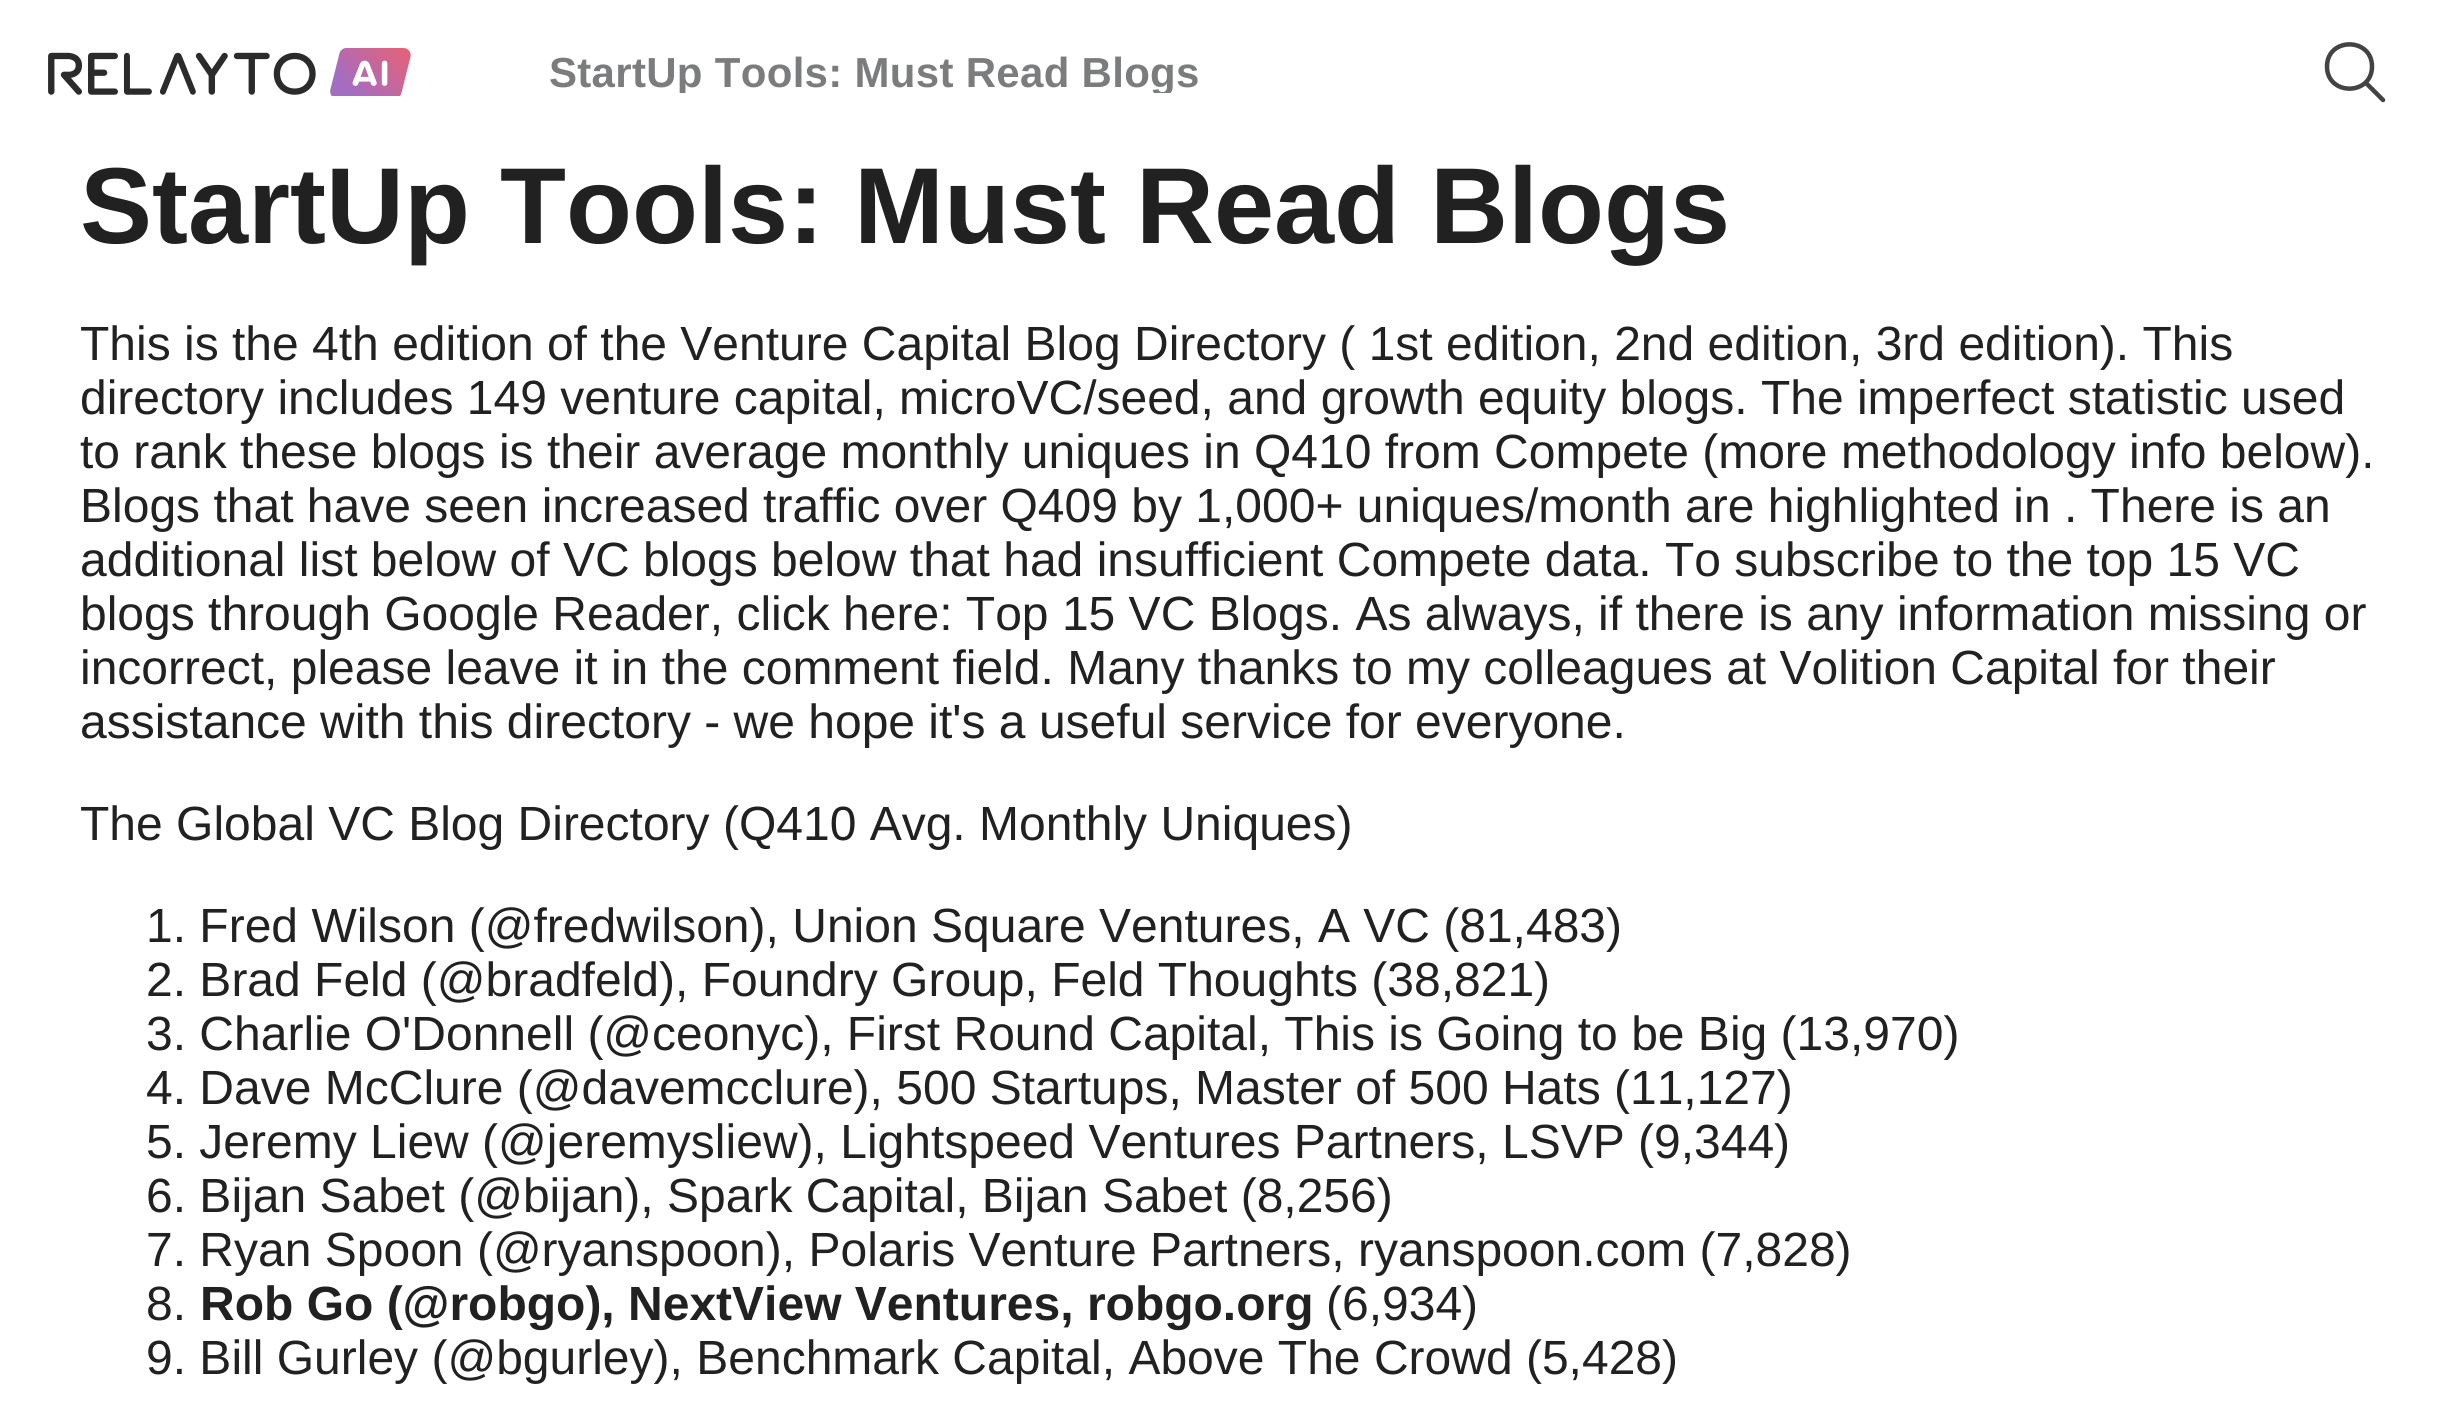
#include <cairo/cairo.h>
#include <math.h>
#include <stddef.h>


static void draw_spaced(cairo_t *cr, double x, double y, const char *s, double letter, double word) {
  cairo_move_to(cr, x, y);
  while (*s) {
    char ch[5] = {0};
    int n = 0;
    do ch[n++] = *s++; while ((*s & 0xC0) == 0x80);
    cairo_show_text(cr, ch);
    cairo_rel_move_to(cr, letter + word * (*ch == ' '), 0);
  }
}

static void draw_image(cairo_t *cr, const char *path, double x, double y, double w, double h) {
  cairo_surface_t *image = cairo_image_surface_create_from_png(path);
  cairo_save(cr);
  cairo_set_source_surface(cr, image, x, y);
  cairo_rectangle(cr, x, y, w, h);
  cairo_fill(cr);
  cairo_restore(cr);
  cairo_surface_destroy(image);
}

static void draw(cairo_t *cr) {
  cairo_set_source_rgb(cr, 1, 1, 1);
  cairo_paint(cr);
  draw_image(cr, "images/1.png", 48, 48, 363, 48);
  cairo_new_path(cr);
  cairo_move_to(cr, 2327, 66.5);
  cairo_curve_to(cr, 2327, 96, 2372, 96, 2372, 66.5);
  cairo_curve_to(cr, 2372, 37, 2327, 37, 2327, 66.5);
  cairo_close_path(cr);
  cairo_move_to(cr, 2365.5, 82.5);
  cairo_line_to(cr, 2383, 100);
  cairo_set_source_rgb(cr, 67 / 255.0, 67 / 255.0, 67 / 255.0);
  cairo_set_line_width(cr, 4.5);
  cairo_set_line_cap(cr, CAIRO_LINE_CAP_ROUND);
  cairo_set_line_join(cr, CAIRO_LINE_JOIN_ROUND);
  cairo_stroke(cr);
  cairo_save(cr);
  cairo_rectangle(cr, 549, 51, 651, 42);
  cairo_clip(cr);
  cairo_select_font_face(cr, "Liberation Sans", CAIRO_FONT_SLANT_NORMAL, CAIRO_FONT_WEIGHT_BOLD);
  cairo_set_font_size(cr, 42);
  cairo_set_source_rgb(cr, 123 / 255.0, 124 / 255.0, 125 / 255.0);
  draw_spaced(cr, 549, 87, "StartUp Tools: Must Read Blogs", 0.3, 0);
  cairo_restore(cr);
  cairo_select_font_face(cr, "Liberation Sans", CAIRO_FONT_SLANT_NORMAL, CAIRO_FONT_WEIGHT_BOLD);
  cairo_set_font_size(cr, 108);
  cairo_set_source_rgb(cr, 33 / 255.0, 33 / 255.0, 33 / 255.0);
  cairo_move_to(cr, 80, 243);
  cairo_show_text(cr, "StartUp Tools: Must Read Blogs");
  cairo_select_font_face(cr, "Liberation Sans", CAIRO_FONT_SLANT_NORMAL, CAIRO_FONT_WEIGHT_NORMAL);
  cairo_set_font_size(cr, 48);
  cairo_move_to(cr, 80, 360);
  cairo_show_text(cr, "This is the 4th edition of the Venture Capital Blog Directory ( 1st edition, 2nd edition, 3rd edition). This");
  cairo_move_to(cr, 80, 414);
  cairo_show_text(cr, "directory includes 149 venture capital, microVC/seed, and growth equity blogs. The imperfect statistic used");
  cairo_move_to(cr, 80, 468);
  cairo_show_text(cr, "to rank these blogs is their average monthly uniques in Q410 from Compete (more methodology info below).");
  cairo_move_to(cr, 80, 522);
  cairo_show_text(cr, "Blogs that have seen increased traffic over Q409 by 1,000+ uniques/month are highlighted in . There is an");
  cairo_move_to(cr, 80, 576);
  cairo_show_text(cr, "additional list below of VC blogs below that had insufficient Compete data. To subscribe to the top 15 VC");
  cairo_move_to(cr, 80, 630);
  cairo_show_text(cr, "blogs through Google Reader, click here: Top 15 VC Blogs. As always, if there is any information missing or");
  cairo_move_to(cr, 80, 684);
  cairo_show_text(cr, "incorrect, please leave it in the comment field. Many thanks to my colleagues at Volition Capital for their");
  cairo_move_to(cr, 80, 738);
  cairo_show_text(cr, "assistance with this directory - we hope it's a useful service for everyone.");
  cairo_move_to(cr, 80, 840);
  cairo_show_text(cr, "The Global VC Blog Directory (Q410 Avg. Monthly Uniques)");
  cairo_move_to(cr, 146, 942);
  cairo_show_text(cr, "1. Fred Wilson (@fredwilson), Union Square Ventures, A VC (81,483)");
  cairo_move_to(cr, 146, 996);
  cairo_show_text(cr, "2. Brad Feld (@bradfeld), Foundry Group, Feld Thoughts (38,821)");
  cairo_move_to(cr, 146, 1050);
  cairo_show_text(cr, "3. Charlie O'Donnell (@ceonyc), First Round Capital, This is Going to be Big (13,970)");
  cairo_move_to(cr, 146, 1104);
  cairo_show_text(cr, "4. Dave McClure (@davemcclure), 500 Startups, Master of 500 Hats (11,127)");
  cairo_move_to(cr, 146, 1158);
  cairo_show_text(cr, "5. Jeremy Liew (@jeremysliew), Lightspeed Ventures Partners, LSVP (9,344)");
  cairo_move_to(cr, 146, 1212);
  cairo_show_text(cr, "6. Bijan Sabet (@bijan), Spark Capital, Bijan Sabet (8,256)");
  cairo_move_to(cr, 146, 1266);
  cairo_show_text(cr, "7. Ryan Spoon (@ryanspoon), Polaris Venture Partners, ryanspoon.com (7,828)");
  cairo_move_to(cr, 146, 1320);
  cairo_show_text(cr, "8.");
  cairo_select_font_face(cr, "Liberation Sans", CAIRO_FONT_SLANT_NORMAL, CAIRO_FONT_WEIGHT_BOLD);
  cairo_move_to(cr, 200, 1320);
  cairo_show_text(cr, "Rob Go (@robgo), NextView Ventures, robgo.org");
  cairo_select_font_face(cr, "Liberation Sans", CAIRO_FONT_SLANT_NORMAL, CAIRO_FONT_WEIGHT_NORMAL);
  cairo_move_to(cr, 1326, 1320);
  cairo_show_text(cr, "(6,934)");
  cairo_move_to(cr, 146, 1374);
  cairo_show_text(cr, "9. Bill Gurley (@bgurley), Benchmark Capital, Above The Crowd (5,428)");
}

int main(void) {
  cairo_surface_t *surface = cairo_image_surface_create(CAIRO_FORMAT_RGB24, 2460, 1414);
  cairo_t *cr = cairo_create(surface);
  cairo_font_options_t *options = cairo_font_options_create();
  cairo_font_options_set_hint_metrics(options, CAIRO_HINT_METRICS_OFF);
  cairo_font_options_set_hint_style(options, CAIRO_HINT_STYLE_NONE);
  cairo_set_font_options(cr, options);
  cairo_set_miter_limit(cr, 4);
  draw(cr);
  cairo_surface_write_to_png(surface, "out.png");
  cairo_font_options_destroy(options);
  cairo_destroy(cr);
  cairo_surface_destroy(surface);
  return 0;
}
